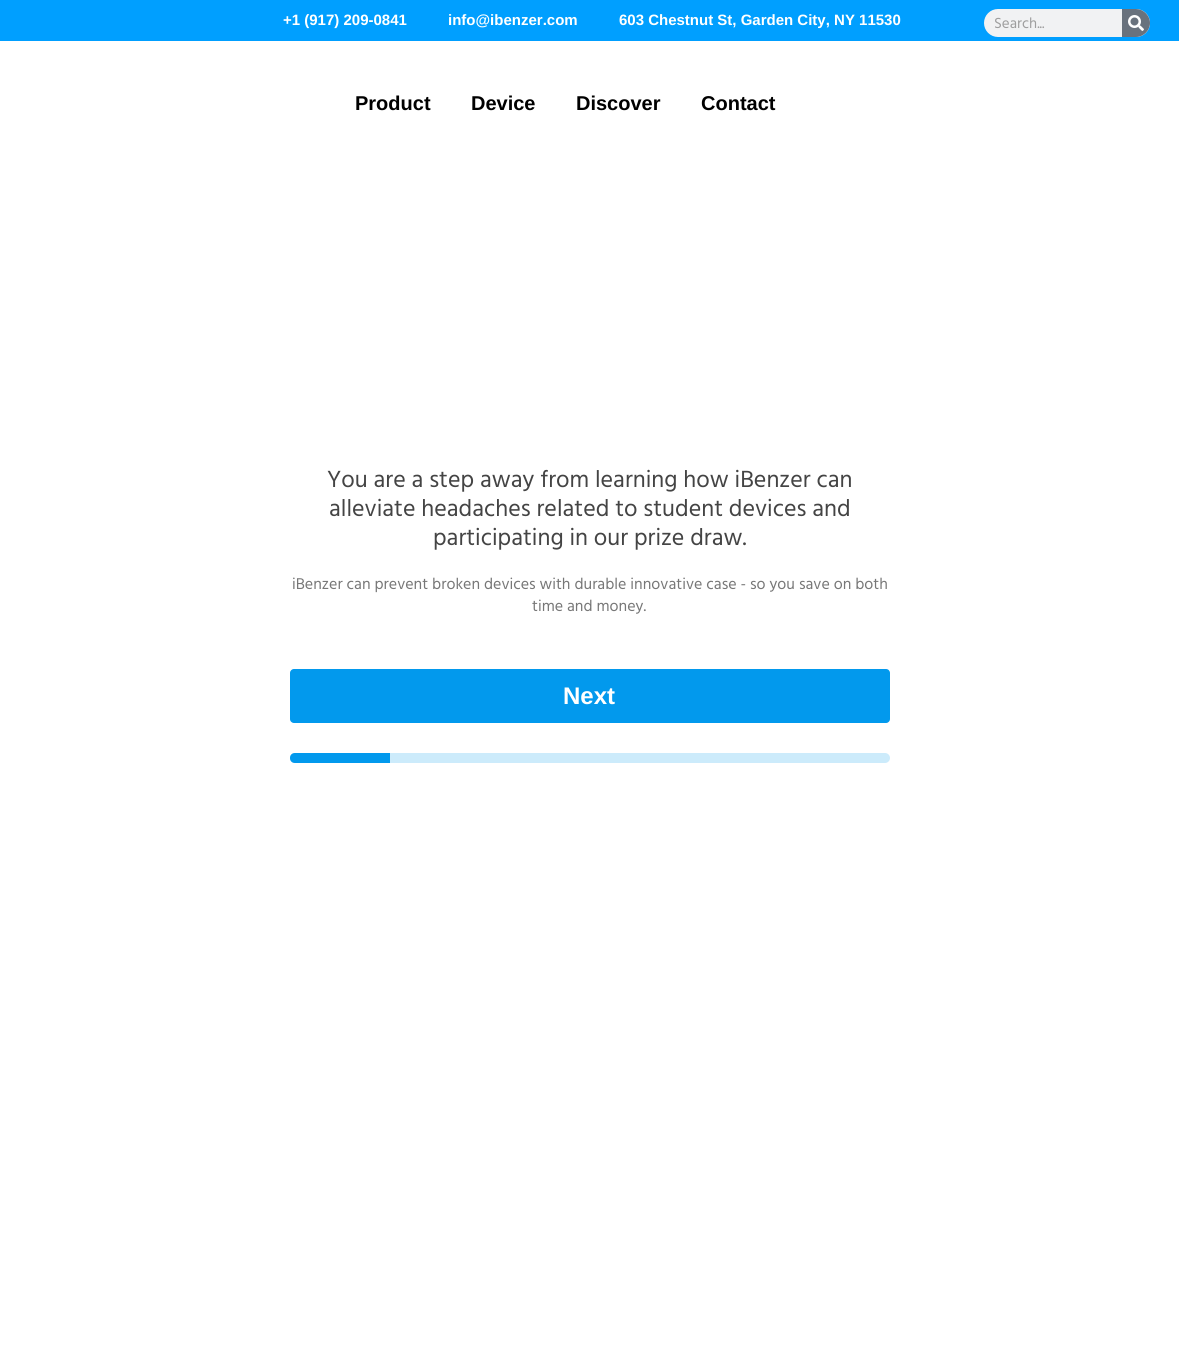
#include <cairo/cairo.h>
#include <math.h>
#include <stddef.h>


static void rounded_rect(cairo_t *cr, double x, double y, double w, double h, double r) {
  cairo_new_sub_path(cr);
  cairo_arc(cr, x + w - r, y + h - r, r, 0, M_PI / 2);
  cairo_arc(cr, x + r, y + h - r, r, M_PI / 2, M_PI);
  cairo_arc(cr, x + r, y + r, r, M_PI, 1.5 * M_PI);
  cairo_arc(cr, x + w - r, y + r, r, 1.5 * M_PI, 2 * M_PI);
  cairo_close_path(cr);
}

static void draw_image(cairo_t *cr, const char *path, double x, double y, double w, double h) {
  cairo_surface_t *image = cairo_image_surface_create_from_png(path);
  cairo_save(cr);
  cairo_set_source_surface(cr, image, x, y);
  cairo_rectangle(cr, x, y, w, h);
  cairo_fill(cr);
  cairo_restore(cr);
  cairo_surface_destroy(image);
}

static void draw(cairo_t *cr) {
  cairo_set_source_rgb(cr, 1, 1, 1);
  cairo_paint(cr);
  cairo_set_source_rgb(cr, 0, 159 / 255.0, 1);
  cairo_rectangle(cr, 0, 0, 1179, 41);
  cairo_fill(cr);
  cairo_set_source_rgb(cr, 241 / 255.0, 242 / 255.0, 243 / 255.0);
  rounded_rect(cr, 984, 9, 166, 28, 14);
  cairo_fill(cr);
  cairo_set_source_rgb(cr, 105 / 255.0, 114 / 255.0, 125 / 255.0);
  cairo_new_path(cr);
  cairo_move_to(cr, 1122, 9);
  cairo_line_to(cr, 1136, 9);
  cairo_curve_to(cr, 1143.5, 9, 1150, 15.5, 1150, 23);
  cairo_curve_to(cr, 1150, 30.5, 1143.5, 37, 1136, 37);
  cairo_line_to(cr, 1122, 37);
  cairo_close_path(cr);
  cairo_fill(cr);
  draw_image(cr, "images/1.png", 1128, 15, 16, 16);
  cairo_set_source_rgb(cr, 2 / 255.0, 153 / 255.0, 237 / 255.0);
  rounded_rect(cr, 290, 669, 600, 54, 4);
  cairo_fill(cr);
  cairo_set_source_rgb(cr, 204 / 255.0, 235 / 255.0, 251 / 255.0);
  rounded_rect(cr, 290, 753, 600, 10, 5);
  cairo_fill(cr);
  cairo_set_source_rgb(cr, 2 / 255.0, 153 / 255.0, 237 / 255.0);
  cairo_new_path(cr);
  cairo_move_to(cr, 295, 753);
  cairo_line_to(cr, 390, 753);
  cairo_line_to(cr, 390, 763);
  cairo_line_to(cr, 295, 763);
  cairo_curve_to(cr, 292, 763, 290, 761, 290, 758);
  cairo_curve_to(cr, 290, 755, 292, 753, 295, 753);
  cairo_close_path(cr);
  cairo_fill(cr);
  cairo_select_font_face(cr, "Liberation Sans", CAIRO_FONT_SLANT_NORMAL, CAIRO_FONT_WEIGHT_BOLD);
  cairo_set_font_size(cr, 15);
  cairo_set_source_rgb(cr, 1, 1, 1);
  cairo_move_to(cr, 283, 25);
  cairo_show_text(cr, "+1 (917) 209-0841");
  cairo_move_to(cr, 448, 25);
  cairo_show_text(cr, "info@ibenzer.com");
  cairo_move_to(cr, 619, 25);
  cairo_show_text(cr, "603 Chestnut St, Garden City, NY 11530");
  cairo_select_font_face(cr, "Hind Madurai", CAIRO_FONT_SLANT_NORMAL, CAIRO_FONT_WEIGHT_NORMAL);
  cairo_set_source_rgb(cr, 158 / 255.0, 158 / 255.0, 158 / 255.0);
  cairo_move_to(cr, 994, 28);
  cairo_show_text(cr, "Search...");
  cairo_select_font_face(cr, "Liberation Sans", CAIRO_FONT_SLANT_NORMAL, CAIRO_FONT_WEIGHT_BOLD);
  cairo_set_font_size(cr, 20);
  cairo_set_source_rgb(cr, 0, 0, 0);
  cairo_move_to(cr, 355, 110);
  cairo_show_text(cr, "Product");
  cairo_move_to(cr, 471, 110);
  cairo_show_text(cr, "Device");
  cairo_move_to(cr, 576, 110);
  cairo_show_text(cr, "Discover");
  cairo_move_to(cr, 701, 110);
  cairo_show_text(cr, "Contact");
  cairo_select_font_face(cr, "Hind Madurai", CAIRO_FONT_SLANT_NORMAL, CAIRO_FONT_WEIGHT_NORMAL);
  cairo_set_font_size(cr, 24);
  cairo_set_source_rgb(cr, 68 / 255.0, 68 / 255.0, 68 / 255.0);
  cairo_move_to(cr, 327, 487);
  cairo_show_text(cr, "You are a step away from learning how iBenzer can");
  cairo_move_to(cr, 329, 516);
  cairo_show_text(cr, "alleviate headaches related to student devices and");
  cairo_move_to(cr, 433, 545);
  cairo_show_text(cr, "participating in our prize draw.");
  cairo_set_font_size(cr, 16);
  cairo_set_source_rgb(cr, 119 / 255.0, 119 / 255.0, 119 / 255.0);
  cairo_move_to(cr, 292, 589);
  cairo_show_text(cr, "iBenzer can prevent broken devices with durable innovative case - so you save on both");
  cairo_move_to(cr, 532, 611);
  cairo_show_text(cr, "time and money.");
  cairo_select_font_face(cr, "Liberation Sans", CAIRO_FONT_SLANT_NORMAL, CAIRO_FONT_WEIGHT_BOLD);
  cairo_set_font_size(cr, 24);
  cairo_set_source_rgb(cr, 1, 1, 1);
  cairo_move_to(cr, 563, 704);
  cairo_show_text(cr, "Next");
}

int main(void) {
  cairo_surface_t *surface = cairo_image_surface_create(CAIRO_FORMAT_RGB24, 1179, 1350);
  cairo_t *cr = cairo_create(surface);
  cairo_font_options_t *options = cairo_font_options_create();
  cairo_font_options_set_hint_metrics(options, CAIRO_HINT_METRICS_OFF);
  cairo_font_options_set_hint_style(options, CAIRO_HINT_STYLE_NONE);
  cairo_set_font_options(cr, options);
  cairo_set_miter_limit(cr, 4);
  draw(cr);
  cairo_surface_write_to_png(surface, "out.png");
  cairo_font_options_destroy(options);
  cairo_destroy(cr);
  cairo_surface_destroy(surface);
  return 0;
}
